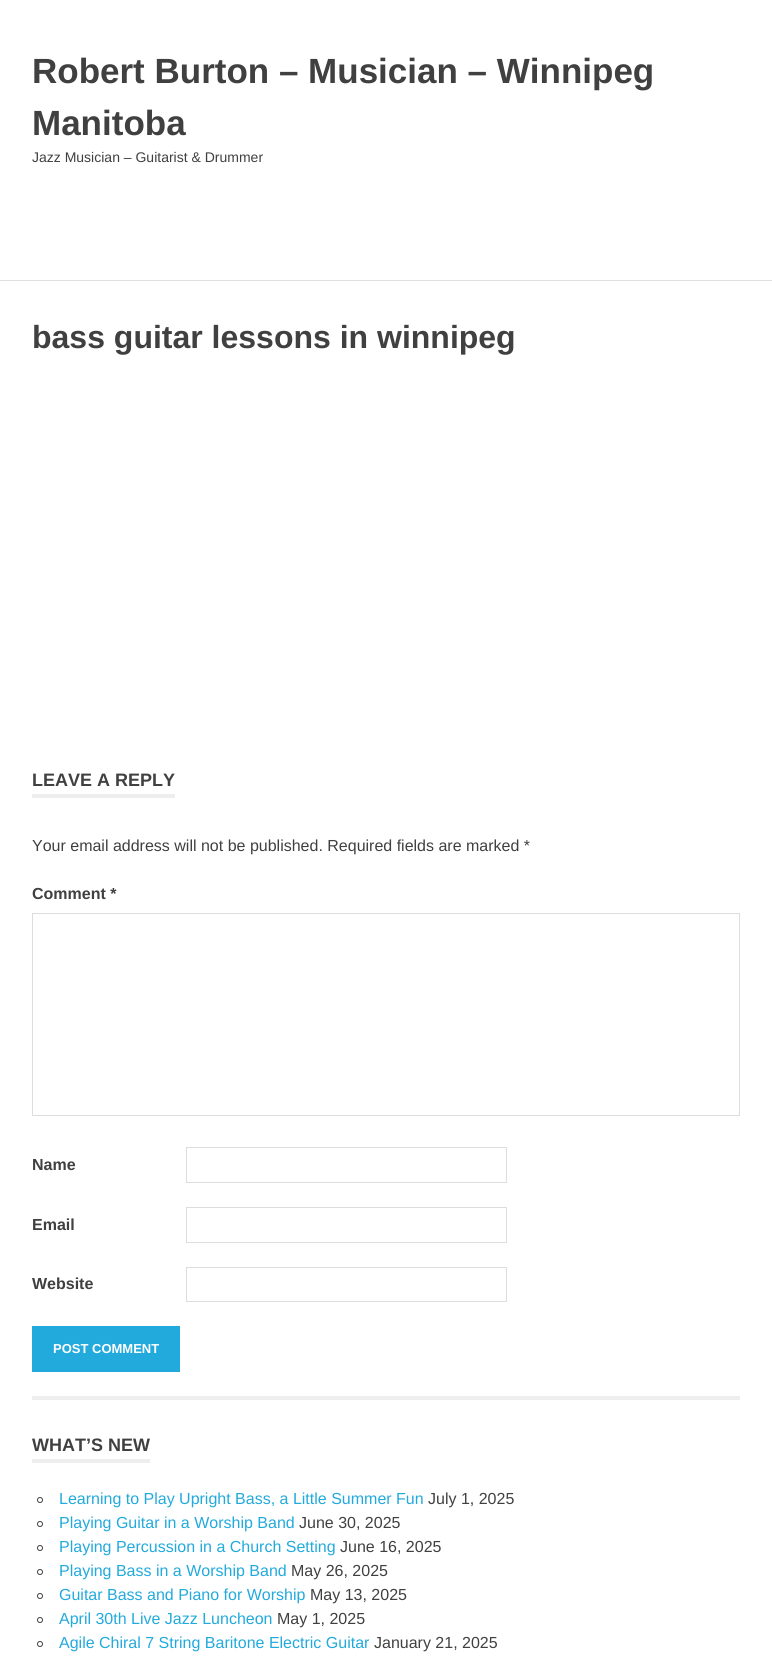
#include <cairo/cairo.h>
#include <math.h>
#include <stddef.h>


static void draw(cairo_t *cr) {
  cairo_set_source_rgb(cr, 1, 1, 1);
  cairo_paint(cr);
  cairo_set_source_rgb(cr, 224 / 255.0, 224 / 255.0, 224 / 255.0);
  cairo_rectangle(cr, 0, 280, 772, 1);
  cairo_fill(cr);
  cairo_set_source_rgb(cr, 238 / 255.0, 238 / 255.0, 238 / 255.0);
  cairo_rectangle(cr, 32, 794, 143, 4);
  cairo_fill(cr);
  cairo_rectangle(cr, 32.5, 913.5, 707, 202);
  cairo_set_source_rgb(cr, 221 / 255.0, 221 / 255.0, 221 / 255.0);
  cairo_set_line_width(cr, 1);
  cairo_stroke(cr);
  cairo_rectangle(cr, 186.5, 1147.5, 320, 35);
  cairo_stroke(cr);
  cairo_rectangle(cr, 186.5, 1207.5, 320, 35);
  cairo_stroke(cr);
  cairo_rectangle(cr, 186.5, 1267.5, 320, 34);
  cairo_stroke(cr);
  cairo_set_source_rgb(cr, 34 / 255.0, 170 / 255.0, 221 / 255.0);
  cairo_rectangle(cr, 32, 1326, 148, 46);
  cairo_fill(cr);
  cairo_set_source_rgb(cr, 238 / 255.0, 238 / 255.0, 238 / 255.0);
  cairo_rectangle(cr, 32, 1396, 708, 4);
  cairo_fill(cr);
  cairo_rectangle(cr, 32, 1459, 118, 4);
  cairo_fill(cr);
  cairo_arc(cr, 40, 1500, 2.5, 0, 2 * M_PI);
  cairo_set_source_rgb(cr, 64 / 255.0, 64 / 255.0, 64 / 255.0);
  cairo_stroke(cr);
  cairo_arc(cr, 40, 1524, 2.5, 0, 2 * M_PI);
  cairo_stroke(cr);
  cairo_arc(cr, 40, 1548, 2.5, 0, 2 * M_PI);
  cairo_stroke(cr);
  cairo_arc(cr, 40, 1572, 2.5, 0, 2 * M_PI);
  cairo_stroke(cr);
  cairo_arc(cr, 40, 1596, 2.5, 0, 2 * M_PI);
  cairo_stroke(cr);
  cairo_arc(cr, 40, 1620, 2.5, 0, 2 * M_PI);
  cairo_stroke(cr);
  cairo_arc(cr, 40, 1644, 2.5, 0, 2 * M_PI);
  cairo_stroke(cr);
  cairo_select_font_face(cr, "Liberation Sans", CAIRO_FONT_SLANT_NORMAL, CAIRO_FONT_WEIGHT_BOLD);
  cairo_set_font_size(cr, 35);
  cairo_move_to(cr, 32, 83);
  cairo_show_text(cr, "Robert Burton – Musician – Winnipeg");
  cairo_move_to(cr, 32, 135);
  cairo_show_text(cr, "Manitoba");
  cairo_select_font_face(cr, "Liberation Sans", CAIRO_FONT_SLANT_NORMAL, CAIRO_FONT_WEIGHT_NORMAL);
  cairo_set_font_size(cr, 14);
  cairo_move_to(cr, 32, 162);
  cairo_show_text(cr, "Jazz Musician – Guitarist & Drummer");
  cairo_select_font_face(cr, "Liberation Sans", CAIRO_FONT_SLANT_NORMAL, CAIRO_FONT_WEIGHT_BOLD);
  cairo_set_font_size(cr, 32);
  cairo_move_to(cr, 32, 348);
  cairo_show_text(cr, "bass guitar lessons in winnipeg");
  cairo_set_font_size(cr, 18);
  cairo_move_to(cr, 32, 786);
  cairo_show_text(cr, "LEAVE A REPLY");
  cairo_select_font_face(cr, "Liberation Sans", CAIRO_FONT_SLANT_NORMAL, CAIRO_FONT_WEIGHT_NORMAL);
  cairo_set_font_size(cr, 16);
  cairo_move_to(cr, 32, 851);
  cairo_show_text(cr, "Your email address will not be published. Required fields are marked *");
  cairo_select_font_face(cr, "Liberation Sans", CAIRO_FONT_SLANT_NORMAL, CAIRO_FONT_WEIGHT_BOLD);
  cairo_move_to(cr, 32, 899);
  cairo_show_text(cr, "Comment *");
  cairo_move_to(cr, 32, 1170);
  cairo_show_text(cr, "Name");
  cairo_move_to(cr, 32, 1230);
  cairo_show_text(cr, "Email");
  cairo_move_to(cr, 32, 1289);
  cairo_show_text(cr, "Website");
  cairo_set_font_size(cr, 13);
  cairo_set_source_rgb(cr, 1, 1, 1);
  cairo_move_to(cr, 53, 1353);
  cairo_show_text(cr, "POST COMMENT");
  cairo_set_font_size(cr, 18);
  cairo_set_source_rgb(cr, 64 / 255.0, 64 / 255.0, 64 / 255.0);
  cairo_move_to(cr, 32, 1451);
  cairo_show_text(cr, "WHAT’S NEW");
  cairo_select_font_face(cr, "Liberation Sans", CAIRO_FONT_SLANT_NORMAL, CAIRO_FONT_WEIGHT_NORMAL);
  cairo_set_font_size(cr, 16);
  cairo_set_source_rgb(cr, 34 / 255.0, 170 / 255.0, 221 / 255.0);
  cairo_move_to(cr, 59, 1504);
  cairo_show_text(cr, "Learning to Play Upright Bass, a Little Summer Fun");
  cairo_set_source_rgb(cr, 64 / 255.0, 64 / 255.0, 64 / 255.0);
  cairo_move_to(cr, 428, 1504);
  cairo_show_text(cr, "July 1, 2025");
  cairo_set_source_rgb(cr, 34 / 255.0, 170 / 255.0, 221 / 255.0);
  cairo_move_to(cr, 59, 1528);
  cairo_show_text(cr, "Playing Guitar in a Worship Band");
  cairo_set_source_rgb(cr, 64 / 255.0, 64 / 255.0, 64 / 255.0);
  cairo_move_to(cr, 299, 1528);
  cairo_show_text(cr, "June 30, 2025");
  cairo_set_source_rgb(cr, 34 / 255.0, 170 / 255.0, 221 / 255.0);
  cairo_move_to(cr, 59, 1552);
  cairo_show_text(cr, "Playing Percussion in a Church Setting");
  cairo_set_source_rgb(cr, 64 / 255.0, 64 / 255.0, 64 / 255.0);
  cairo_move_to(cr, 340, 1552);
  cairo_show_text(cr, "June 16, 2025");
  cairo_set_source_rgb(cr, 34 / 255.0, 170 / 255.0, 221 / 255.0);
  cairo_move_to(cr, 59, 1576);
  cairo_show_text(cr, "Playing Bass in a Worship Band");
  cairo_set_source_rgb(cr, 64 / 255.0, 64 / 255.0, 64 / 255.0);
  cairo_move_to(cr, 291, 1576);
  cairo_show_text(cr, "May 26, 2025");
  cairo_set_source_rgb(cr, 34 / 255.0, 170 / 255.0, 221 / 255.0);
  cairo_move_to(cr, 59, 1600);
  cairo_show_text(cr, "Guitar Bass and Piano for Worship");
  cairo_set_source_rgb(cr, 64 / 255.0, 64 / 255.0, 64 / 255.0);
  cairo_move_to(cr, 310, 1600);
  cairo_show_text(cr, "May 13, 2025");
  cairo_set_source_rgb(cr, 34 / 255.0, 170 / 255.0, 221 / 255.0);
  cairo_move_to(cr, 59, 1624);
  cairo_show_text(cr, "April 30th Live Jazz Luncheon");
  cairo_set_source_rgb(cr, 64 / 255.0, 64 / 255.0, 64 / 255.0);
  cairo_move_to(cr, 277, 1624);
  cairo_show_text(cr, "May 1, 2025");
  cairo_set_source_rgb(cr, 34 / 255.0, 170 / 255.0, 221 / 255.0);
  cairo_move_to(cr, 59, 1648);
  cairo_show_text(cr, "Agile Chiral 7 String Baritone Electric Guitar");
  cairo_set_source_rgb(cr, 64 / 255.0, 64 / 255.0, 64 / 255.0);
  cairo_move_to(cr, 374, 1648);
  cairo_show_text(cr, "January 21, 2025");
}

int main(void) {
  cairo_surface_t *surface = cairo_image_surface_create(CAIRO_FORMAT_RGB24, 772, 1661);
  cairo_t *cr = cairo_create(surface);
  cairo_font_options_t *options = cairo_font_options_create();
  cairo_font_options_set_hint_metrics(options, CAIRO_HINT_METRICS_OFF);
  cairo_font_options_set_hint_style(options, CAIRO_HINT_STYLE_NONE);
  cairo_set_font_options(cr, options);
  cairo_set_miter_limit(cr, 4);
  draw(cr);
  cairo_surface_write_to_png(surface, "out.png");
  cairo_font_options_destroy(options);
  cairo_destroy(cr);
  cairo_surface_destroy(surface);
  return 0;
}
